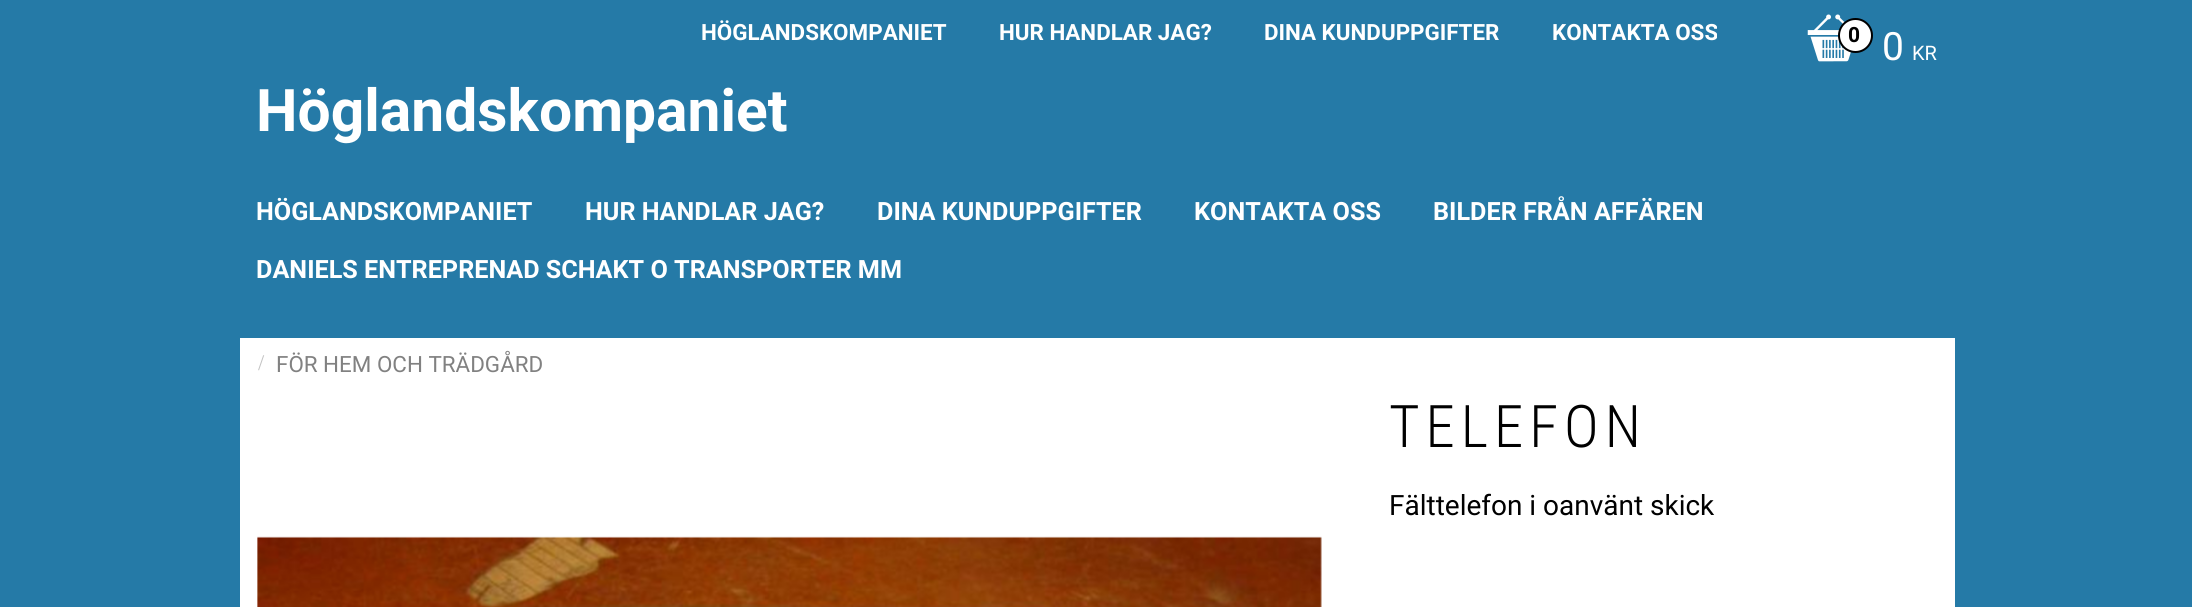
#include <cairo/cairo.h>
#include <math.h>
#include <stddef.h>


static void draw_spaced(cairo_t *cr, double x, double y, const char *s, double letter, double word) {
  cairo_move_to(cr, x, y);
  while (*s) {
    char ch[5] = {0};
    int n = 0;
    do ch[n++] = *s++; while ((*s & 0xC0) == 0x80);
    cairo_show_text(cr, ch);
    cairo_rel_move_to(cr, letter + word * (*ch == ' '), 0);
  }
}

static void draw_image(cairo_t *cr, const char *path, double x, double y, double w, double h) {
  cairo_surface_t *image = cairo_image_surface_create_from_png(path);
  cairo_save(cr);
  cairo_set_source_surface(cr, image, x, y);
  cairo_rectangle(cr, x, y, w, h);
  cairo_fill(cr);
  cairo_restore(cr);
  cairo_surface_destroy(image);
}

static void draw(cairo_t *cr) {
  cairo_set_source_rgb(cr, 37 / 255.0, 122 / 255.0, 167 / 255.0);
  cairo_paint(cr);
  draw_image(cr, "images/1.png", 1807, 14, 44, 48);
  cairo_set_source_rgb(cr, 1, 1, 1);
  cairo_arc(cr, 1855.5, 35.5, 16.5, 0, 2 * M_PI);
  cairo_fill_preserve(cr);
  cairo_set_source_rgb(cr, 0, 0, 0);
  cairo_stroke(cr);
  cairo_set_source_rgb(cr, 1, 1, 1);
  cairo_rectangle(cr, 240, 338, 1715, 269);
  cairo_fill(cr);
  draw_image(cr, "images/2.png", 257, 536, 1065, 71);
  cairo_select_font_face(cr, "Roboto", CAIRO_FONT_SLANT_NORMAL, CAIRO_FONT_WEIGHT_BOLD);
  cairo_set_font_size(cr, 22.4);
  cairo_move_to(cr, 701, 40);
  cairo_show_text(cr, "HÖGLANDSKOMPANIET");
  cairo_move_to(cr, 999, 40);
  cairo_show_text(cr, "HUR HANDLAR JAG?");
  cairo_move_to(cr, 1264, 40);
  cairo_show_text(cr, "DINA KUNDUPPGIFTER");
  cairo_move_to(cr, 1552, 40);
  cairo_show_text(cr, "KONTAKTA OSS");
  cairo_set_font_size(cr, 21);
  cairo_set_source_rgb(cr, 0, 0, 0);
  cairo_move_to(cr, 1848, 42);
  cairo_show_text(cr, "0");
  cairo_select_font_face(cr, "Roboto", CAIRO_FONT_SLANT_NORMAL, CAIRO_FONT_WEIGHT_NORMAL);
  cairo_set_font_size(cr, 39);
  cairo_set_source_rgb(cr, 1, 1, 1);
  cairo_move_to(cr, 1882, 60);
  cairo_show_text(cr, "0");
  cairo_set_font_size(cr, 20);
  cairo_move_to(cr, 1912, 60);
  cairo_show_text(cr, "KR");
  cairo_select_font_face(cr, "Roboto", CAIRO_FONT_SLANT_NORMAL, CAIRO_FONT_WEIGHT_BOLD);
  cairo_set_font_size(cr, 58.75);
  cairo_move_to(cr, 256, 131);
  cairo_show_text(cr, "Höglandskompaniet");
  cairo_set_font_size(cr, 25.2);
  cairo_move_to(cr, 256, 220);
  cairo_show_text(cr, "HÖGLANDSKOMPANIET");
  cairo_move_to(cr, 585, 220);
  cairo_show_text(cr, "HUR HANDLAR JAG?");
  cairo_move_to(cr, 877, 220);
  cairo_show_text(cr, "DINA KUNDUPPGIFTER");
  cairo_move_to(cr, 1194, 220);
  cairo_show_text(cr, "KONTAKTA OSS");
  cairo_move_to(cr, 1433, 220);
  cairo_show_text(cr, "BILDER FRÅN AFFÄREN");
  cairo_move_to(cr, 256, 278);
  cairo_show_text(cr, "DANIELS ENTREPRENAD SCHAKT O TRANSPORTER MM");
  cairo_select_font_face(cr, "Liberation Serif", CAIRO_FONT_SLANT_NORMAL, CAIRO_FONT_WEIGHT_NORMAL);
  cairo_set_font_size(cr, 22.4);
  cairo_set_source_rgb(cr, 195 / 255.0, 195 / 255.0, 195 / 255.0);
  cairo_move_to(cr, 258, 370);
  cairo_show_text(cr, "/");
  cairo_select_font_face(cr, "Roboto", CAIRO_FONT_SLANT_NORMAL, CAIRO_FONT_WEIGHT_NORMAL);
  cairo_set_source_rgb(cr, 129 / 255.0, 129 / 255.0, 129 / 255.0);
  cairo_move_to(cr, 276, 372);
  cairo_show_text(cr, "FÖR HEM OCH TRÄDGÅRD");
  cairo_select_font_face(cr, "Roboto Condensed Light", CAIRO_FONT_SLANT_NORMAL, CAIRO_FONT_WEIGHT_NORMAL);
  cairo_set_font_size(cr, 58.75);
  cairo_set_source_rgb(cr, 0, 0, 0);
  draw_spaced(cr, 1389, 447, "TELEFON", 6, 0);
  cairo_select_font_face(cr, "Roboto", CAIRO_FONT_SLANT_NORMAL, CAIRO_FONT_WEIGHT_NORMAL);
  cairo_set_font_size(cr, 28);
  cairo_move_to(cr, 1389, 515);
  cairo_show_text(cr, "Fälttelefon i oanvänt skick");
}

int main(void) {
  cairo_surface_t *surface = cairo_image_surface_create(CAIRO_FORMAT_RGB24, 2192, 607);
  cairo_t *cr = cairo_create(surface);
  cairo_font_options_t *options = cairo_font_options_create();
  cairo_font_options_set_hint_metrics(options, CAIRO_HINT_METRICS_OFF);
  cairo_font_options_set_hint_style(options, CAIRO_HINT_STYLE_NONE);
  cairo_set_font_options(cr, options);
  cairo_set_miter_limit(cr, 4);
  draw(cr);
  cairo_surface_write_to_png(surface, "out.png");
  cairo_font_options_destroy(options);
  cairo_destroy(cr);
  cairo_surface_destroy(surface);
  return 0;
}
